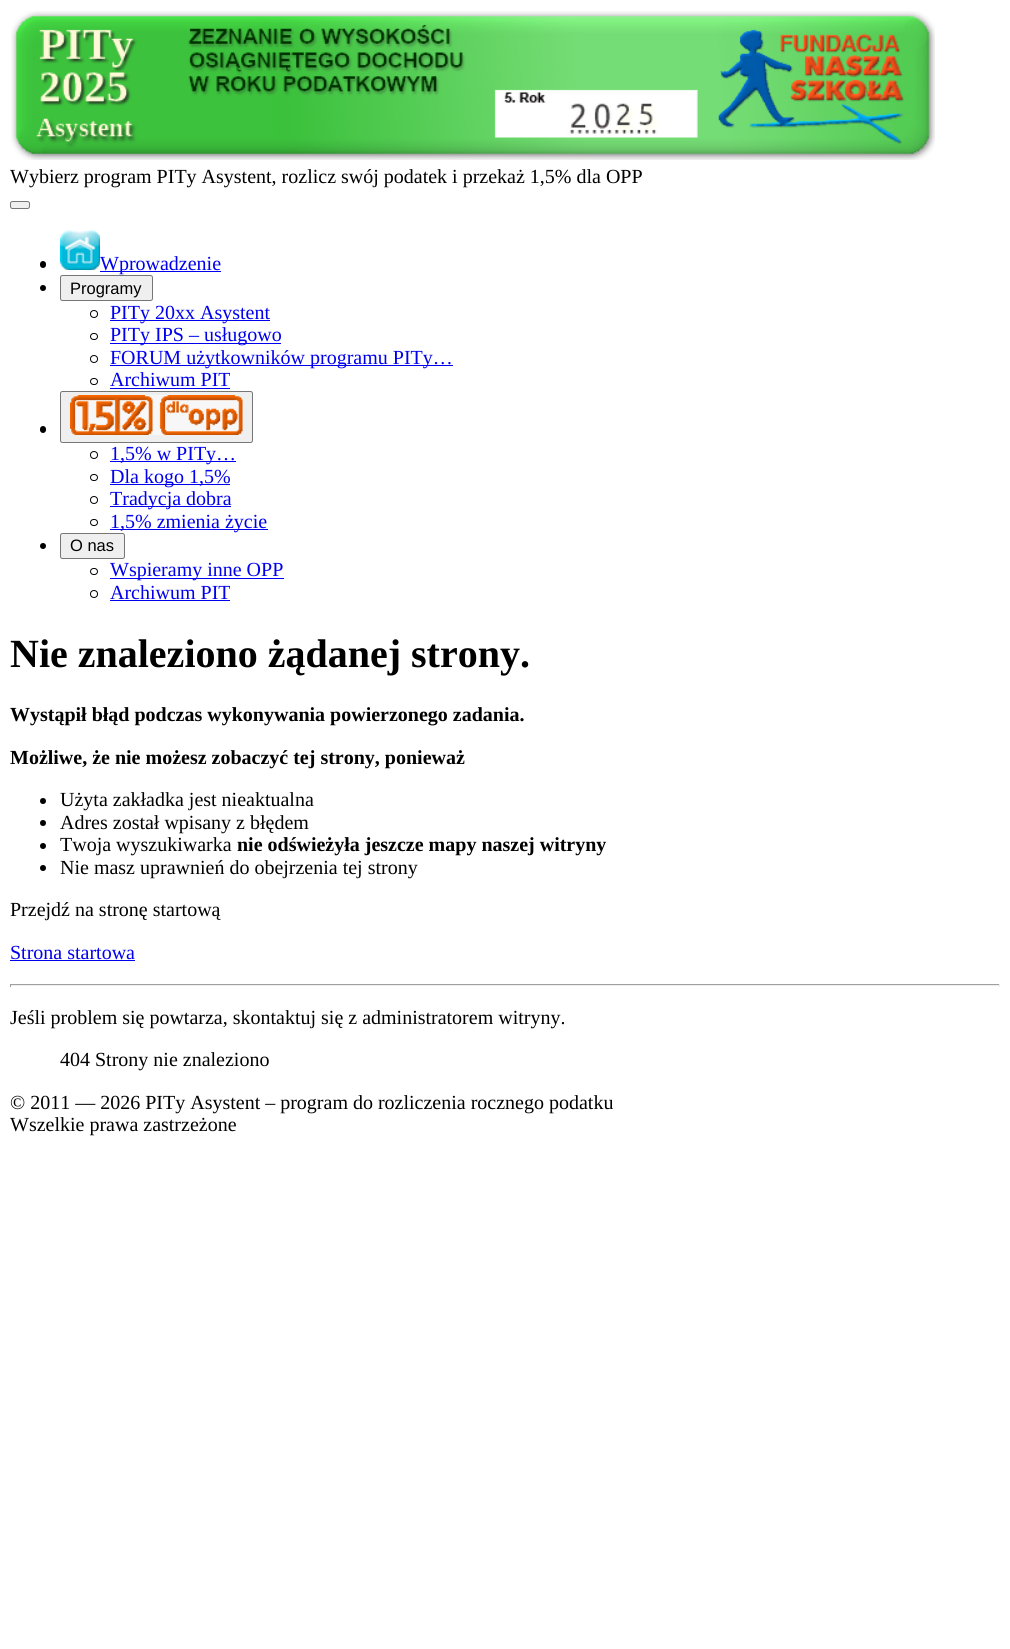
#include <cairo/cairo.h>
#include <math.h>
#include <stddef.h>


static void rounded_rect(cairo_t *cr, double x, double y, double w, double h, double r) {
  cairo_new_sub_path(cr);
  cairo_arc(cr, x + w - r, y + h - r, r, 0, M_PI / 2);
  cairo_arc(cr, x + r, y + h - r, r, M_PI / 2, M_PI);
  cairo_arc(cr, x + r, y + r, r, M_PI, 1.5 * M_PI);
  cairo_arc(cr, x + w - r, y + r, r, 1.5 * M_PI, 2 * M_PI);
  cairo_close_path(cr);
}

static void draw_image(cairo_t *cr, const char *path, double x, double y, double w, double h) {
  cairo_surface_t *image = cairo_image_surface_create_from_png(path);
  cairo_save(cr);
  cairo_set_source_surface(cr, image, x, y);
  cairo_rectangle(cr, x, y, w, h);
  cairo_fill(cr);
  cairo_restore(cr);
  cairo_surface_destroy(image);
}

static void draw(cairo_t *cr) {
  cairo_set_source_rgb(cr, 1, 1, 1);
  cairo_paint(cr);
  draw_image(cr, "images/1.png", 11, 11, 924, 149);
  cairo_set_source_rgb(cr, 239 / 255.0, 239 / 255.0, 239 / 255.0);
  rounded_rect(cr, 10.5, 201.5, 19, 7, 2);
  cairo_fill_preserve(cr);
  cairo_set_source_rgb(cr, 118 / 255.0, 118 / 255.0, 118 / 255.0);
  cairo_set_line_width(cr, 1);
  cairo_stroke(cr);
  cairo_set_source_rgb(cr, 0, 0, 0);
  rounded_rect(cr, 40, 261, 6, 7, 3);
  cairo_fill(cr);
  draw_image(cr, "images/2.png", 60, 230, 40, 40);
  cairo_set_source_rgb(cr, 0, 0, 238 / 255.0);
  cairo_rectangle(cr, 100, 271, 121, 1);
  cairo_fill(cr);
  cairo_set_source_rgb(cr, 0, 0, 0);
  cairo_arc(cr, 43, 288, 3, 0, 2 * M_PI);
  cairo_fill(cr);
  cairo_set_source_rgb(cr, 239 / 255.0, 239 / 255.0, 239 / 255.0);
  rounded_rect(cr, 60.5, 275.5, 92, 25, 2);
  cairo_fill_preserve(cr);
  cairo_set_source_rgb(cr, 118 / 255.0, 118 / 255.0, 118 / 255.0);
  cairo_stroke(cr);
  cairo_arc(cr, 94, 314, 3.5, 0, 2 * M_PI);
  cairo_set_source_rgb(cr, 0, 0, 0);
  cairo_stroke(cr);
  cairo_set_source_rgb(cr, 0, 0, 238 / 255.0);
  cairo_rectangle(cr, 110, 320, 160, 1);
  cairo_fill(cr);
  rounded_rect(cr, 90.5, 333.5, 7, 6, 3);
  cairo_set_source_rgb(cr, 0, 0, 0);
  cairo_stroke(cr);
  cairo_set_source_rgb(cr, 0, 0, 238 / 255.0);
  cairo_rectangle(cr, 110, 343, 171, 1);
  cairo_fill(cr);
  cairo_arc(cr, 94, 359, 3.5, 0, 2 * M_PI);
  cairo_set_source_rgb(cr, 0, 0, 0);
  cairo_stroke(cr);
  cairo_set_source_rgb(cr, 0, 0, 238 / 255.0);
  cairo_rectangle(cr, 110, 365, 343, 1);
  cairo_fill(cr);
  rounded_rect(cr, 90.5, 378.5, 7, 6, 3);
  cairo_set_source_rgb(cr, 0, 0, 0);
  cairo_stroke(cr);
  cairo_set_source_rgb(cr, 0, 0, 238 / 255.0);
  cairo_rectangle(cr, 110, 388, 120, 1);
  cairo_fill(cr);
  cairo_set_source_rgb(cr, 0, 0, 0);
  rounded_rect(cr, 40, 426, 6, 7, 3);
  cairo_fill(cr);
  cairo_set_source_rgb(cr, 239 / 255.0, 239 / 255.0, 239 / 255.0);
  rounded_rect(cr, 60.5, 391.5, 192, 51, 2);
  cairo_fill_preserve(cr);
  cairo_set_source_rgb(cr, 118 / 255.0, 118 / 255.0, 118 / 255.0);
  cairo_stroke(cr);
  draw_image(cr, "images/3.png", 70, 395, 173, 40);
  cairo_arc(cr, 94, 455, 3.5, 0, 2 * M_PI);
  cairo_set_source_rgb(cr, 0, 0, 0);
  cairo_stroke(cr);
  cairo_set_source_rgb(cr, 0, 0, 238 / 255.0);
  cairo_rectangle(cr, 110, 461, 126, 1);
  cairo_fill(cr);
  rounded_rect(cr, 90.5, 474.5, 7, 6, 3);
  cairo_set_source_rgb(cr, 0, 0, 0);
  cairo_stroke(cr);
  cairo_set_source_rgb(cr, 0, 0, 238 / 255.0);
  cairo_rectangle(cr, 110, 484, 120, 1);
  cairo_fill(cr);
  cairo_arc(cr, 94, 500, 3.5, 0, 2 * M_PI);
  cairo_set_source_rgb(cr, 0, 0, 0);
  cairo_stroke(cr);
  cairo_set_source_rgb(cr, 0, 0, 238 / 255.0);
  cairo_rectangle(cr, 110, 506, 121, 1);
  cairo_fill(cr);
  rounded_rect(cr, 90.5, 519.5, 7, 6, 3);
  cairo_set_source_rgb(cr, 0, 0, 0);
  cairo_stroke(cr);
  cairo_set_source_rgb(cr, 0, 0, 238 / 255.0);
  cairo_rectangle(cr, 110, 529, 158, 1);
  cairo_fill(cr);
  cairo_set_source_rgb(cr, 0, 0, 0);
  cairo_arc(cr, 43, 546, 3, 0, 2 * M_PI);
  cairo_fill(cr);
  cairo_set_source_rgb(cr, 239 / 255.0, 239 / 255.0, 239 / 255.0);
  rounded_rect(cr, 60.5, 533.5, 64, 25, 2);
  cairo_fill_preserve(cr);
  cairo_set_source_rgb(cr, 118 / 255.0, 118 / 255.0, 118 / 255.0);
  cairo_stroke(cr);
  rounded_rect(cr, 90.5, 568.5, 7, 6, 3);
  cairo_set_source_rgb(cr, 0, 0, 0);
  cairo_stroke(cr);
  cairo_set_source_rgb(cr, 0, 0, 238 / 255.0);
  cairo_rectangle(cr, 110, 578, 174, 1);
  cairo_fill(cr);
  cairo_arc(cr, 94, 594, 3.5, 0, 2 * M_PI);
  cairo_set_source_rgb(cr, 0, 0, 0);
  cairo_stroke(cr);
  cairo_set_source_rgb(cr, 0, 0, 238 / 255.0);
  cairo_rectangle(cr, 110, 600, 120, 1);
  cairo_fill(cr);
  cairo_set_source_rgb(cr, 0, 0, 0);
  cairo_arc(cr, 43, 801, 3, 0, 2 * M_PI);
  cairo_fill(cr);
  cairo_arc(cr, 43, 823, 3, 0, 2 * M_PI);
  cairo_fill(cr);
  cairo_arc(cr, 43, 846, 3, 0, 2 * M_PI);
  cairo_fill(cr);
  cairo_arc(cr, 43, 868, 3, 0, 2 * M_PI);
  cairo_fill(cr);
  cairo_set_source_rgb(cr, 0, 0, 238 / 255.0);
  cairo_rectangle(cr, 10, 960, 125, 1);
  cairo_fill(cr);
  cairo_set_source_rgb(cr, 159 / 255.0, 159 / 255.0, 159 / 255.0);
  cairo_rectangle(cr, 10, 984, 990, 1);
  cairo_fill(cr);
  cairo_set_source_rgb(cr, 238 / 255.0, 238 / 255.0, 238 / 255.0);
  cairo_rectangle(cr, 999, 984, 1, 3);
  cairo_fill(cr);
  cairo_rectangle(cr, 10, 985, 990, 1);
  cairo_fill(cr);
  cairo_set_source_rgb(cr, 159 / 255.0, 159 / 255.0, 159 / 255.0);
  cairo_rectangle(cr, 10, 984, 1, 3);
  cairo_fill(cr);
  cairo_select_font_face(cr, "Liberation Serif", CAIRO_FONT_SLANT_NORMAL, CAIRO_FONT_WEIGHT_NORMAL);
  cairo_set_font_size(cr, 20);
  cairo_set_source_rgb(cr, 0, 0, 0);
  cairo_move_to(cr, 10, 183);
  cairo_show_text(cr, "Wybierz program PITy Asystent, rozlicz swój podatek i przekaż 1,5% dla OPP");
  cairo_set_source_rgb(cr, 0, 0, 238 / 255.0);
  cairo_move_to(cr, 100, 270);
  cairo_show_text(cr, "Wprowadzenie");
  cairo_select_font_face(cr, "Liberation Sans", CAIRO_FONT_SLANT_NORMAL, CAIRO_FONT_WEIGHT_NORMAL);
  cairo_set_font_size(cr, 16.5);
  cairo_set_source_rgb(cr, 0, 0, 0);
  cairo_move_to(cr, 70, 294);
  cairo_show_text(cr, "Programy");
  cairo_select_font_face(cr, "Liberation Serif", CAIRO_FONT_SLANT_NORMAL, CAIRO_FONT_WEIGHT_NORMAL);
  cairo_set_font_size(cr, 20);
  cairo_set_source_rgb(cr, 0, 0, 238 / 255.0);
  cairo_move_to(cr, 110, 319);
  cairo_show_text(cr, "PITy 20xx Asystent");
  cairo_move_to(cr, 110, 341);
  cairo_show_text(cr, "PITy IPS – usługowo");
  cairo_move_to(cr, 110, 364);
  cairo_show_text(cr, "FORUM użytkowników programu PITy…");
  cairo_move_to(cr, 110, 386);
  cairo_show_text(cr, "Archiwum PIT");
  cairo_move_to(cr, 110, 460);
  cairo_show_text(cr, "1,5% w PITy…");
  cairo_move_to(cr, 110, 483);
  cairo_show_text(cr, "Dla kogo 1,5%");
  cairo_move_to(cr, 110, 505);
  cairo_show_text(cr, "Tradycja dobra");
  cairo_move_to(cr, 110, 528);
  cairo_show_text(cr, "1,5% zmienia życie");
  cairo_select_font_face(cr, "Liberation Sans", CAIRO_FONT_SLANT_NORMAL, CAIRO_FONT_WEIGHT_NORMAL);
  cairo_set_font_size(cr, 16.5);
  cairo_set_source_rgb(cr, 0, 0, 0);
  cairo_move_to(cr, 70, 551);
  cairo_show_text(cr, "O nas");
  cairo_select_font_face(cr, "Liberation Serif", CAIRO_FONT_SLANT_NORMAL, CAIRO_FONT_WEIGHT_NORMAL);
  cairo_set_font_size(cr, 20);
  cairo_set_source_rgb(cr, 0, 0, 238 / 255.0);
  cairo_move_to(cr, 110, 576);
  cairo_show_text(cr, "Wspieramy inne OPP");
  cairo_move_to(cr, 110, 599);
  cairo_show_text(cr, "Archiwum PIT");
  cairo_select_font_face(cr, "Liberation Serif", CAIRO_FONT_SLANT_NORMAL, CAIRO_FONT_WEIGHT_BOLD);
  cairo_set_font_size(cr, 40);
  cairo_set_source_rgb(cr, 0, 0, 0);
  cairo_move_to(cr, 10, 667);
  cairo_show_text(cr, "Nie znaleziono żądanej strony.");
  cairo_set_font_size(cr, 20);
  cairo_move_to(cr, 10, 721);
  cairo_show_text(cr, "Wystąpił błąd podczas wykonywania powierzonego zadania.");
  cairo_move_to(cr, 10, 764);
  cairo_show_text(cr, "Możliwe, że nie możesz zobaczyć tej strony, ponieważ");
  cairo_select_font_face(cr, "Liberation Serif", CAIRO_FONT_SLANT_NORMAL, CAIRO_FONT_WEIGHT_NORMAL);
  cairo_move_to(cr, 60, 806);
  cairo_show_text(cr, "Użyta zakładka jest nieaktualna");
  cairo_move_to(cr, 60, 829);
  cairo_show_text(cr, "Adres został wpisany z błędem");
  cairo_move_to(cr, 60, 851);
  cairo_show_text(cr, "Twoja wyszukiwarka");
  cairo_select_font_face(cr, "Liberation Serif", CAIRO_FONT_SLANT_NORMAL, CAIRO_FONT_WEIGHT_BOLD);
  cairo_move_to(cr, 237, 851);
  cairo_show_text(cr, "nie odświeżyła jeszcze mapy naszej witryny");
  cairo_select_font_face(cr, "Liberation Serif", CAIRO_FONT_SLANT_NORMAL, CAIRO_FONT_WEIGHT_NORMAL);
  cairo_move_to(cr, 60, 874);
  cairo_show_text(cr, "Nie masz uprawnień do obejrzenia tej strony");
  cairo_move_to(cr, 10, 916);
  cairo_show_text(cr, "Przejdź na stronę startową");
  cairo_set_source_rgb(cr, 0, 0, 238 / 255.0);
  cairo_move_to(cr, 10, 959);
  cairo_show_text(cr, "Strona startowa");
  cairo_set_source_rgb(cr, 0, 0, 0);
  cairo_move_to(cr, 10, 1024);
  cairo_show_text(cr, "Jeśli problem się powtarza, skontaktuj się z administratorem witryny.");
  cairo_move_to(cr, 60, 1066);
  cairo_show_text(cr, "404 Strony nie znaleziono");
  cairo_move_to(cr, 10, 1109);
  cairo_show_text(cr, "© 2011 — 2026 PITy Asystent – program do rozliczenia rocznego podatku");
  cairo_move_to(cr, 10, 1131);
  cairo_show_text(cr, "Wszelkie prawa zastrzeżone");
}

int main(void) {
  cairo_surface_t *surface = cairo_image_surface_create(CAIRO_FORMAT_RGB24, 1010, 1649);
  cairo_t *cr = cairo_create(surface);
  cairo_font_options_t *options = cairo_font_options_create();
  cairo_font_options_set_hint_metrics(options, CAIRO_HINT_METRICS_OFF);
  cairo_font_options_set_hint_style(options, CAIRO_HINT_STYLE_NONE);
  cairo_set_font_options(cr, options);
  cairo_set_miter_limit(cr, 4);
  draw(cr);
  cairo_surface_write_to_png(surface, "out.png");
  cairo_font_options_destroy(options);
  cairo_destroy(cr);
  cairo_surface_destroy(surface);
  return 0;
}
